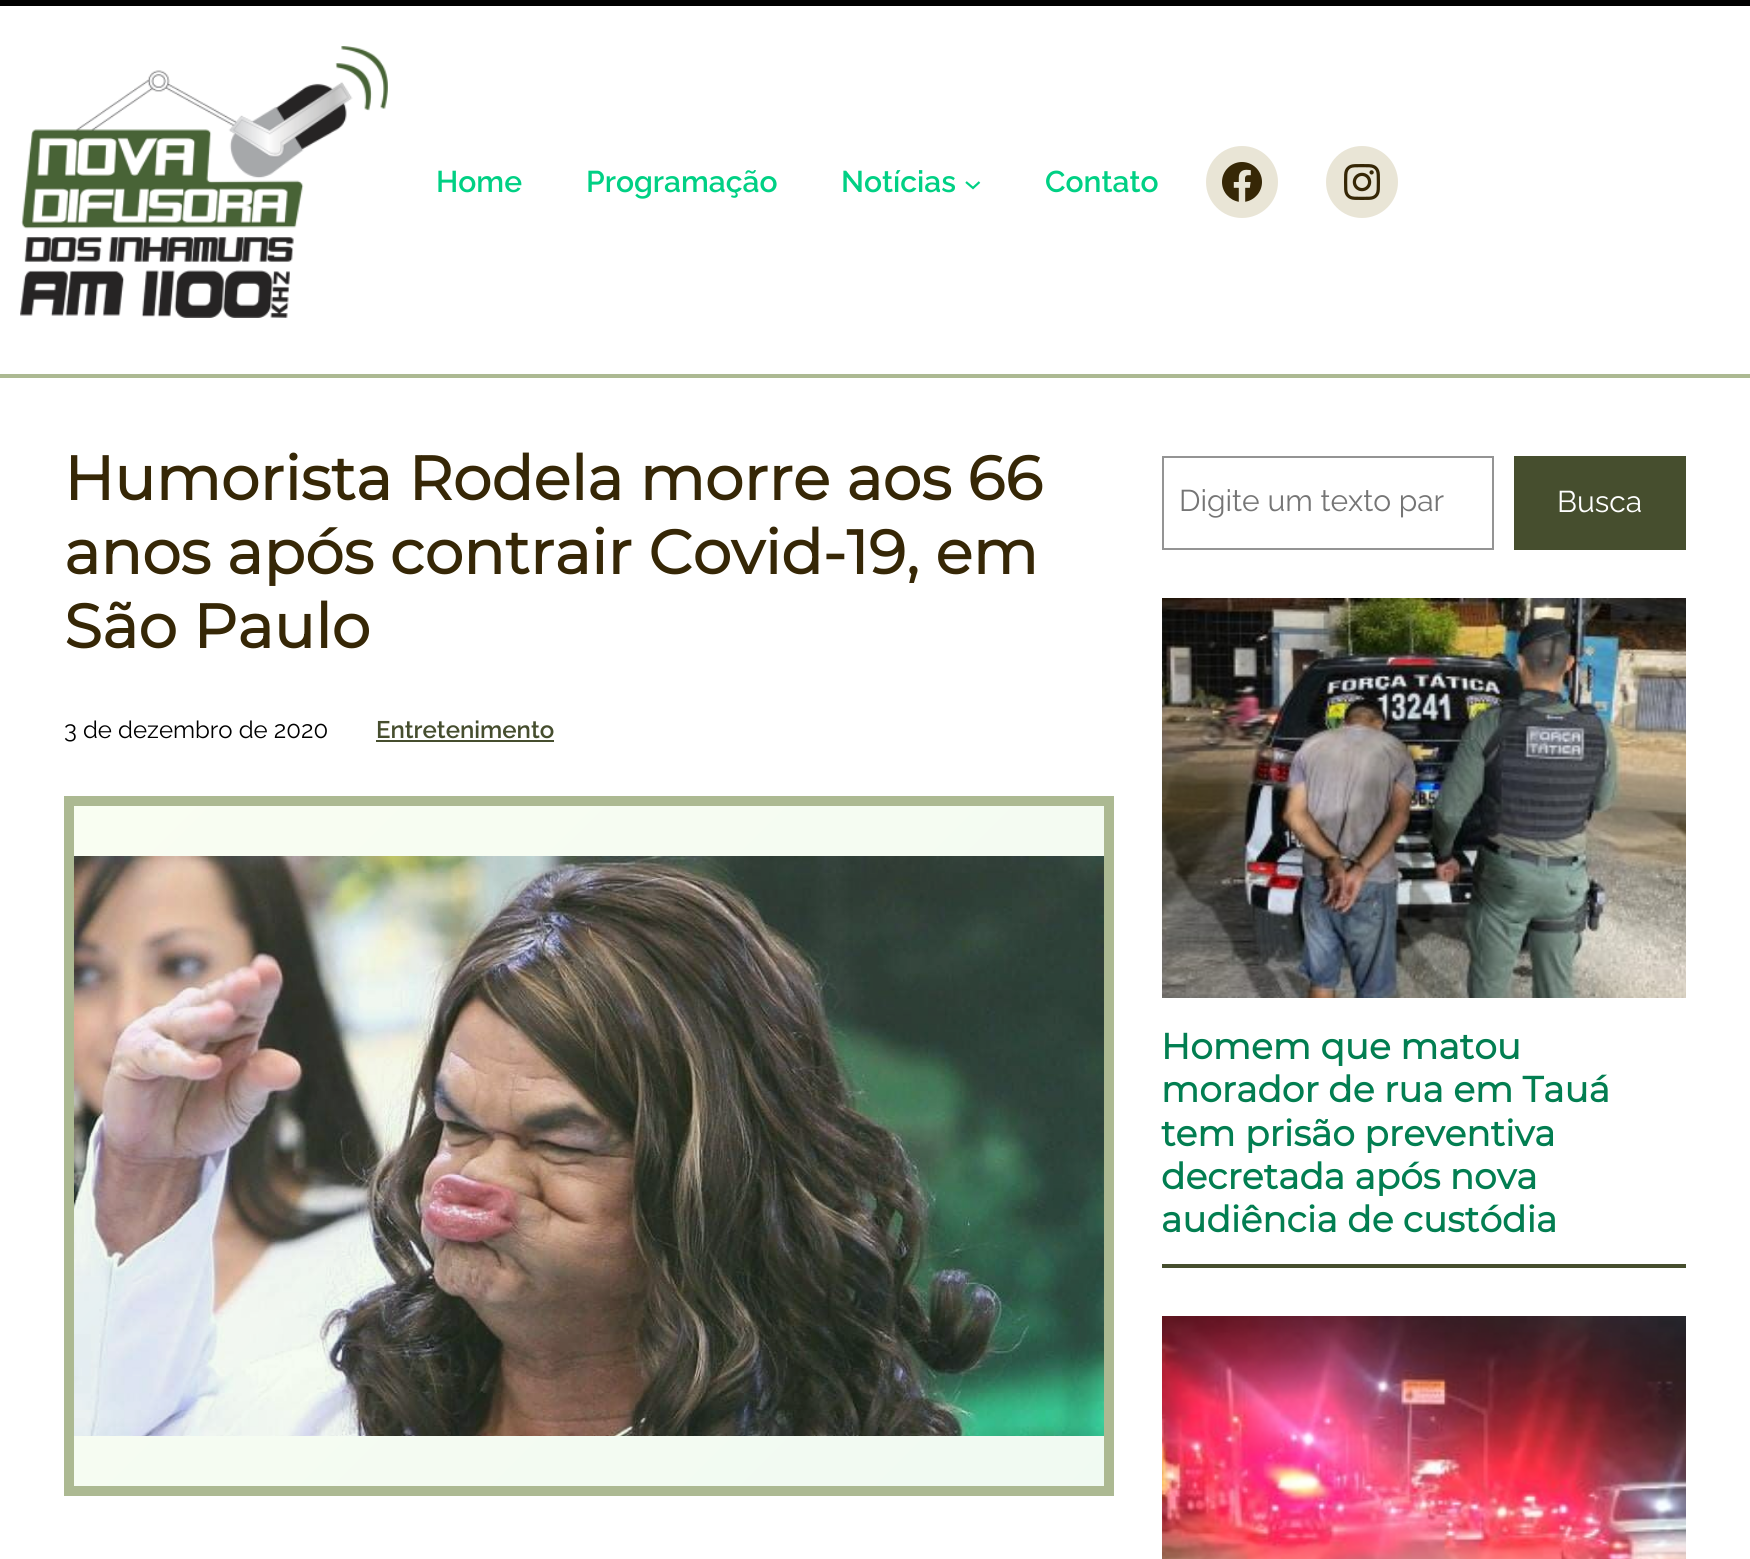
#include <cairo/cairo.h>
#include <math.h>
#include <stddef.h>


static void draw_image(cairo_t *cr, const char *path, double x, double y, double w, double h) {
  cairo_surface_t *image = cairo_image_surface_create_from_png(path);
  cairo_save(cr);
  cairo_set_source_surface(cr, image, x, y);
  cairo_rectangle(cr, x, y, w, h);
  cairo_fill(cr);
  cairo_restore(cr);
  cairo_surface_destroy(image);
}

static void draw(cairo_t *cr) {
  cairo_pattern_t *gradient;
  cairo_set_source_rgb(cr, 1, 1, 1);
  cairo_paint(cr);
  cairo_set_source_rgb(cr, 0, 0, 0);
  cairo_rectangle(cr, 0, 0, 1750, 6);
  cairo_fill(cr);
  draw_image(cr, "images/1.png", 20, 46, 368, 272);
  cairo_new_path(cr);
  cairo_move_to(cr, 966, 182);
  cairo_line_to(cr, 973, 188);
  cairo_line_to(cr, 979.5, 182);
  cairo_set_source_rgb(cr, 0, 208 / 255.0, 132 / 255.0);
  cairo_set_line_width(cr, 2.2);
  cairo_stroke(cr);
  cairo_set_source_rgb(cr, 233 / 255.0, 229 / 255.0, 214 / 255.0);
  cairo_arc(cr, 1242, 182, 36, 0, 2 * M_PI);
  cairo_fill(cr);
  draw_image(cr, "images/2.png", 1222, 162, 40, 40);
  cairo_arc(cr, 1362, 182, 36, 0, 2 * M_PI);
  cairo_fill(cr);
  draw_image(cr, "images/3.png", 1344, 164, 36, 36);
  cairo_set_source_rgb(cr, 172 / 255.0, 185 / 255.0, 146 / 255.0);
  cairo_rectangle(cr, 0, 374, 1750, 4);
  cairo_fill(cr);
  cairo_set_source_rgb(cr, 70 / 255.0, 78 / 255.0, 46 / 255.0);
  cairo_rectangle(cr, 376, 740, 178, 2);
  cairo_fill(cr);
  draw_image(cr, "images/4.png", 74, 856, 1030, 580);
  gradient = cairo_pattern_create_linear(162, 719, 1017, 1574);
  cairo_pattern_add_color_stop_rgba(gradient, 0, 202 / 255.0, 248 / 255.0, 128 / 255.0, 0.1);
  cairo_pattern_add_color_stop_rgba(gradient, 1, 113 / 255.0, 206 / 255.0, 126 / 255.0, 0.1);
  cairo_set_source(cr, gradient);
  cairo_pattern_destroy(gradient);
  cairo_rectangle(cr, 74, 806, 1030, 680);
  cairo_fill(cr);
  cairo_rectangle(cr, 69, 801, 1040, 690);
  cairo_set_source_rgb(cr, 172 / 255.0, 185 / 255.0, 146 / 255.0);
  cairo_set_line_width(cr, 10);
  cairo_stroke(cr);
  cairo_rectangle(cr, 1163, 457, 330, 92);
  cairo_set_source_rgb(cr, 148 / 255.0, 148 / 255.0, 148 / 255.0);
  cairo_set_line_width(cr, 2);
  cairo_stroke(cr);
  cairo_set_source_rgb(cr, 70 / 255.0, 78 / 255.0, 46 / 255.0);
  cairo_rectangle(cr, 1514, 456, 172, 94);
  cairo_fill(cr);
  draw_image(cr, "images/5.png", 1162, 598, 524, 400);
  cairo_rectangle(cr, 1162, 1264, 524, 4);
  cairo_fill(cr);
  draw_image(cr, "images/6.png", 1162, 1316, 524, 243);
  cairo_select_font_face(cr, "Raleway SemiBold", CAIRO_FONT_SLANT_NORMAL, CAIRO_FONT_WEIGHT_NORMAL);
  cairo_set_font_size(cr, 30);
  cairo_set_source_rgb(cr, 0, 208 / 255.0, 132 / 255.0);
  cairo_move_to(cr, 436, 192);
  cairo_show_text(cr, "Home");
  cairo_move_to(cr, 586, 192);
  cairo_show_text(cr, "Programação");
  cairo_move_to(cr, 841, 192);
  cairo_show_text(cr, "Notícias");
  cairo_move_to(cr, 1045, 192);
  cairo_show_text(cr, "Contato");
  cairo_select_font_face(cr, "Montserrat", CAIRO_FONT_SLANT_NORMAL, CAIRO_FONT_WEIGHT_BOLD);
  cairo_set_font_size(cr, 61.6);
  cairo_set_source_rgb(cr, 54 / 255.0, 39 / 255.0, 6 / 255.0);
  cairo_move_to(cr, 64, 500);
  cairo_show_text(cr, "Humorista Rodela morre aos 66");
  cairo_move_to(cr, 64, 574);
  cairo_show_text(cr, "anos após contrair Covid-19, em");
  cairo_move_to(cr, 64, 648);
  cairo_show_text(cr, "São Paulo");
  cairo_select_font_face(cr, "Raleway", CAIRO_FONT_SLANT_NORMAL, CAIRO_FONT_WEIGHT_NORMAL);
  cairo_set_font_size(cr, 24);
  cairo_set_source_rgb(cr, 0, 0, 0);
  cairo_move_to(cr, 64, 738);
  cairo_show_text(cr, "3 de dezembro de 2020");
  cairo_select_font_face(cr, "Raleway SemiBold", CAIRO_FONT_SLANT_NORMAL, CAIRO_FONT_WEIGHT_NORMAL);
  cairo_set_source_rgb(cr, 70 / 255.0, 78 / 255.0, 46 / 255.0);
  cairo_move_to(cr, 376, 738);
  cairo_show_text(cr, "Entretenimento");
  cairo_select_font_face(cr, "Raleway", CAIRO_FONT_SLANT_NORMAL, CAIRO_FONT_WEIGHT_NORMAL);
  cairo_set_font_size(cr, 30);
  cairo_set_source_rgb(cr, 117 / 255.0, 117 / 255.0, 117 / 255.0);
  cairo_move_to(cr, 1179, 511);
  cairo_show_text(cr, "Digite um texto par");
  cairo_set_source_rgb(cr, 1, 1, 1);
  cairo_move_to(cr, 1557, 512);
  cairo_show_text(cr, "Busca");
  cairo_select_font_face(cr, "Montserrat", CAIRO_FONT_SLANT_NORMAL, CAIRO_FONT_WEIGHT_BOLD);
  cairo_set_font_size(cr, 36);
  cairo_set_source_rgb(cr, 2 / 255.0, 126 / 255.0, 81 / 255.0);
  cairo_move_to(cr, 1161, 1059);
  cairo_show_text(cr, "Homem que matou");
  cairo_move_to(cr, 1161, 1102);
  cairo_show_text(cr, "morador de rua em Tauá");
  cairo_move_to(cr, 1161, 1146);
  cairo_show_text(cr, "tem prisão preventiva");
  cairo_move_to(cr, 1161, 1189);
  cairo_show_text(cr, "decretada após nova");
  cairo_move_to(cr, 1161, 1232);
  cairo_show_text(cr, "audiência de custódia");
}

int main(void) {
  cairo_surface_t *surface = cairo_image_surface_create(CAIRO_FORMAT_RGB24, 1750, 1559);
  cairo_t *cr = cairo_create(surface);
  cairo_font_options_t *options = cairo_font_options_create();
  cairo_font_options_set_hint_metrics(options, CAIRO_HINT_METRICS_OFF);
  cairo_font_options_set_hint_style(options, CAIRO_HINT_STYLE_NONE);
  cairo_set_font_options(cr, options);
  cairo_set_miter_limit(cr, 4);
  draw(cr);
  cairo_surface_write_to_png(surface, "out.png");
  cairo_font_options_destroy(options);
  cairo_destroy(cr);
  cairo_surface_destroy(surface);
  return 0;
}
